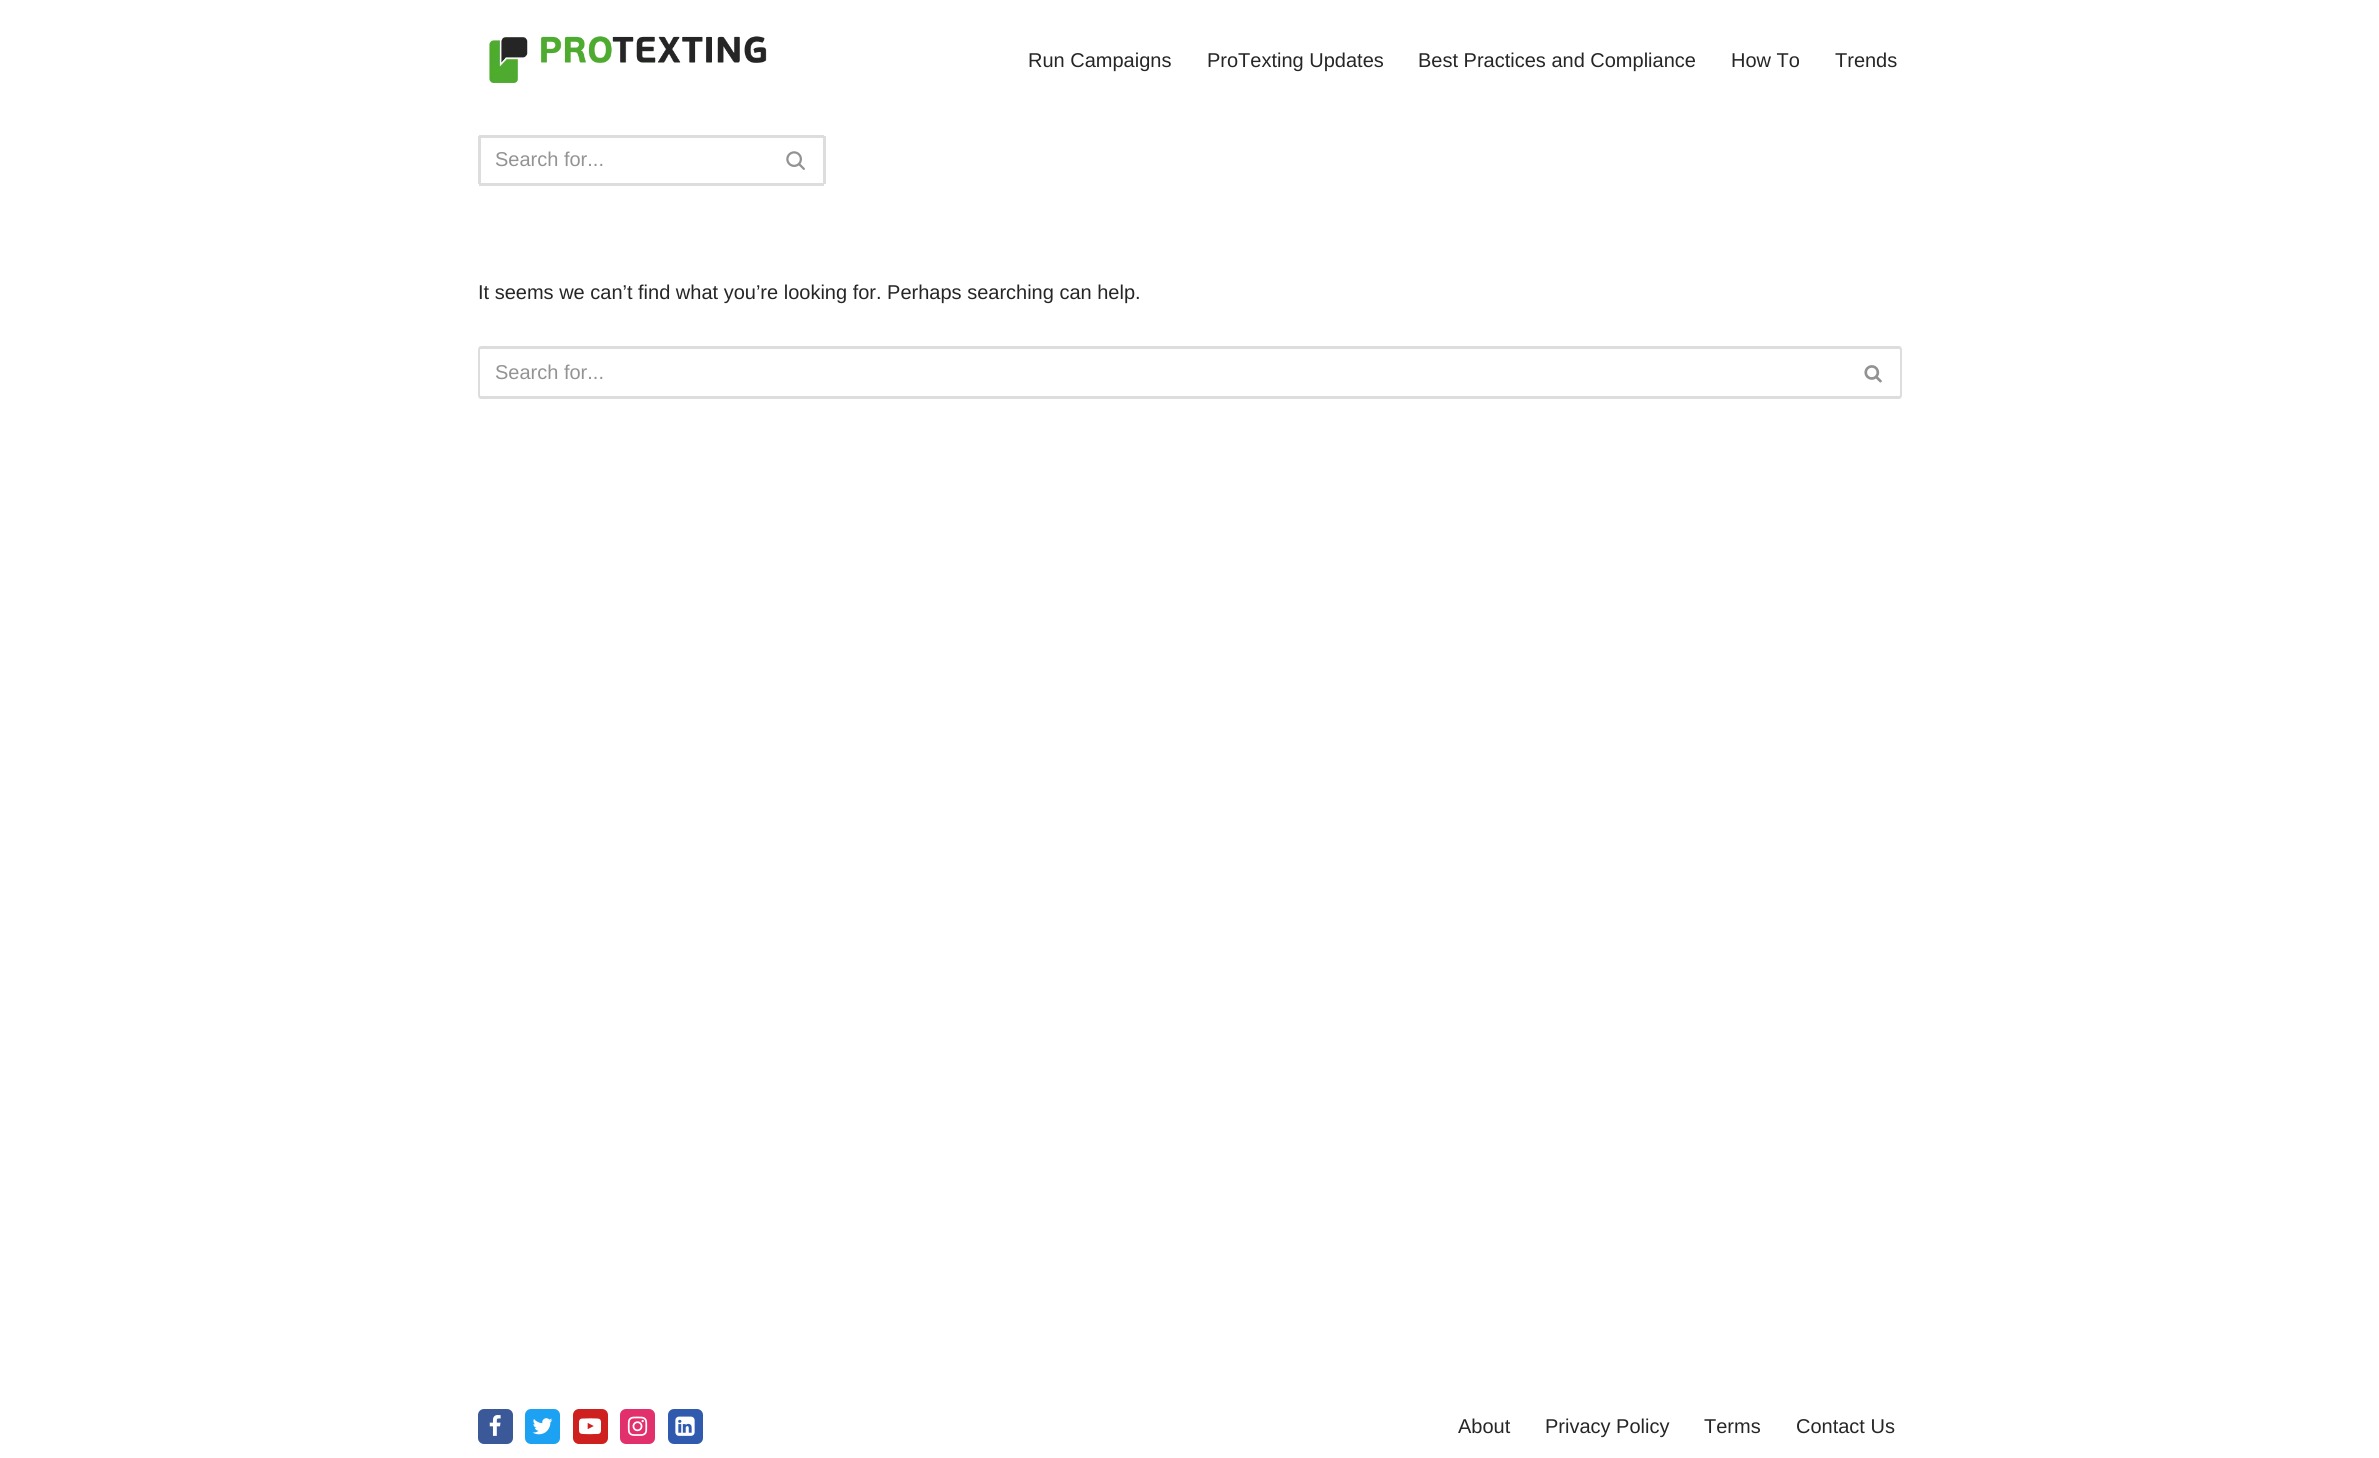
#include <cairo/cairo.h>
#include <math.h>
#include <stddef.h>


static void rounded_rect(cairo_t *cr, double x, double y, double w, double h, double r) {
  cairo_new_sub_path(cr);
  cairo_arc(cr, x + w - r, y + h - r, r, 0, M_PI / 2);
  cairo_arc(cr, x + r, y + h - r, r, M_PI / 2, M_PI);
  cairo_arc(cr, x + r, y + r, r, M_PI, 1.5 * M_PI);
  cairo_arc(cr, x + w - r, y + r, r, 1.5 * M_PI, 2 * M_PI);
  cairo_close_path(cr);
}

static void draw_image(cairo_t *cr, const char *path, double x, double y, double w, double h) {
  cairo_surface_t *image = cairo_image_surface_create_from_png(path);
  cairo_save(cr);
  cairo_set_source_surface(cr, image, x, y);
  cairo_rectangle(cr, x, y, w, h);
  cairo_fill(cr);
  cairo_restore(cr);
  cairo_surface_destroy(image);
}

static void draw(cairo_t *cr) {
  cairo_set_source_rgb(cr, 1, 1, 1);
  cairo_paint(cr);
  draw_image(cr, "images/1.png", 489, 36, 278, 47);
  cairo_set_source_rgb(cr, 221 / 255.0, 221 / 255.0, 221 / 255.0);
  cairo_rectangle(cr, 479, 135, 345, 3);
  cairo_fill(cr);
  cairo_rectangle(cr, 479, 183, 290, 3);
  cairo_fill(cr);
  cairo_rectangle(cr, 478, 136, 3, 48);
  cairo_fill(cr);
  cairo_rectangle(cr, 823, 136, 3, 48);
  cairo_fill(cr);
  cairo_rectangle(cr, 769, 183, 55, 3);
  cairo_fill(cr);
  draw_image(cr, "images/2.png", 786, 151, 19, 19);
  cairo_set_fill_rule(cr, CAIRO_FILL_RULE_EVEN_ODD);
  cairo_new_path(cr);
  cairo_move_to(cr, 481, 346);
  cairo_line_to(cr, 1846, 346);
  cairo_line_to(cr, 1846, 399);
  cairo_line_to(cr, 481, 399);
  cairo_curve_to(cr, 479, 399, 478, 397, 478, 395);
  cairo_line_to(cr, 478, 350);
  cairo_curve_to(cr, 478, 348, 479, 346, 481, 346);
  cairo_close_path(cr);
  cairo_move_to(cr, 481, 349);
  cairo_line_to(cr, 1846, 349);
  cairo_line_to(cr, 1846, 396);
  cairo_line_to(cr, 481, 396);
  cairo_curve_to(cr, 481, 396, 480, 396, 480, 395);
  cairo_line_to(cr, 480, 350);
  cairo_curve_to(cr, 480, 349, 481, 349, 481, 349);
  cairo_close_path(cr);
  cairo_fill(cr);
  cairo_new_path(cr);
  cairo_move_to(cr, 1846, 346);
  cairo_line_to(cr, 1899, 346);
  cairo_curve_to(cr, 1901, 346, 1902, 348, 1902, 350);
  cairo_line_to(cr, 1902, 395);
  cairo_curve_to(cr, 1902, 397, 1901, 399, 1899, 399);
  cairo_line_to(cr, 1846, 399);
  cairo_close_path(cr);
  cairo_move_to(cr, 1846, 349);
  cairo_line_to(cr, 1899, 349);
  cairo_curve_to(cr, 1899, 349, 1900, 349, 1900, 350);
  cairo_line_to(cr, 1900, 395);
  cairo_curve_to(cr, 1900, 396, 1899, 396, 1899, 396);
  cairo_line_to(cr, 1846, 396);
  cairo_close_path(cr);
  cairo_fill(cr);
  draw_image(cr, "images/3.png", 1864, 365, 18, 18);
  cairo_set_source_rgb(cr, 59 / 255.0, 89 / 255.0, 152 / 255.0);
  rounded_rect(cr, 478, 1409, 35, 35, 6);
  cairo_fill(cr);
  draw_image(cr, "images/4.png", 489, 1415, 12, 21);
  cairo_set_source_rgb(cr, 29 / 255.0, 161 / 255.0, 242 / 255.0);
  rounded_rect(cr, 525, 1409, 35, 35, 6);
  cairo_fill(cr);
  draw_image(cr, "images/5.png", 532, 1418, 21, 17);
  cairo_set_source_rgb(cr, 205 / 255.0, 32 / 255.0, 31 / 255.0);
  rounded_rect(cr, 573, 1409, 35, 35, 6);
  cairo_fill(cr);
  draw_image(cr, "images/6.png", 579, 1418, 22, 17);
  cairo_set_source_rgb(cr, 225 / 255.0, 48 / 255.0, 108 / 255.0);
  rounded_rect(cr, 620, 1409, 35, 35, 6);
  cairo_fill(cr);
  draw_image(cr, "images/7.png", 627, 1416, 21, 20);
  cairo_set_source_rgb(cr, 47 / 255.0, 90 / 255.0, 174 / 255.0);
  rounded_rect(cr, 668, 1409, 35, 35, 6);
  cairo_fill(cr);
  draw_image(cr, "images/8.png", 675, 1416, 20, 20);
  cairo_select_font_face(cr, "Liberation Sans", CAIRO_FONT_SLANT_NORMAL, CAIRO_FONT_WEIGHT_NORMAL);
  cairo_set_font_size(cr, 20);
  cairo_set_source_rgb(cr, 39 / 255.0, 38 / 255.0, 38 / 255.0);
  cairo_move_to(cr, 1028, 67);
  cairo_show_text(cr, "Run Campaigns");
  cairo_move_to(cr, 1207, 67);
  cairo_show_text(cr, "ProTexting Updates");
  cairo_move_to(cr, 1418, 67);
  cairo_show_text(cr, "Best Practices and Compliance");
  cairo_move_to(cr, 1731, 67);
  cairo_show_text(cr, "How To");
  cairo_move_to(cr, 1835, 67);
  cairo_show_text(cr, "Trends");
  cairo_set_source_rgb(cr, 147 / 255.0, 147 / 255.0, 147 / 255.0);
  cairo_move_to(cr, 495, 166);
  cairo_show_text(cr, "Search for...");
  cairo_set_source_rgb(cr, 39 / 255.0, 38 / 255.0, 38 / 255.0);
  cairo_move_to(cr, 478, 299);
  cairo_show_text(cr, "It seems we can’t find what you’re looking for. Perhaps searching can help.");
  cairo_set_source_rgb(cr, 147 / 255.0, 147 / 255.0, 147 / 255.0);
  cairo_move_to(cr, 495, 379);
  cairo_show_text(cr, "Search for...");
  cairo_set_source_rgb(cr, 39 / 255.0, 38 / 255.0, 38 / 255.0);
  cairo_move_to(cr, 1458, 1433);
  cairo_show_text(cr, "About");
  cairo_move_to(cr, 1545, 1433);
  cairo_show_text(cr, "Privacy Policy");
  cairo_move_to(cr, 1704, 1433);
  cairo_show_text(cr, "Terms");
  cairo_move_to(cr, 1796, 1433);
  cairo_show_text(cr, "Contact Us");
}

int main(void) {
  cairo_surface_t *surface = cairo_image_surface_create(CAIRO_FORMAT_RGB24, 2379, 1458);
  cairo_t *cr = cairo_create(surface);
  cairo_font_options_t *options = cairo_font_options_create();
  cairo_font_options_set_hint_metrics(options, CAIRO_HINT_METRICS_OFF);
  cairo_font_options_set_hint_style(options, CAIRO_HINT_STYLE_NONE);
  cairo_set_font_options(cr, options);
  cairo_set_miter_limit(cr, 4);
  draw(cr);
  cairo_surface_write_to_png(surface, "out.png");
  cairo_font_options_destroy(options);
  cairo_destroy(cr);
  cairo_surface_destroy(surface);
  return 0;
}
